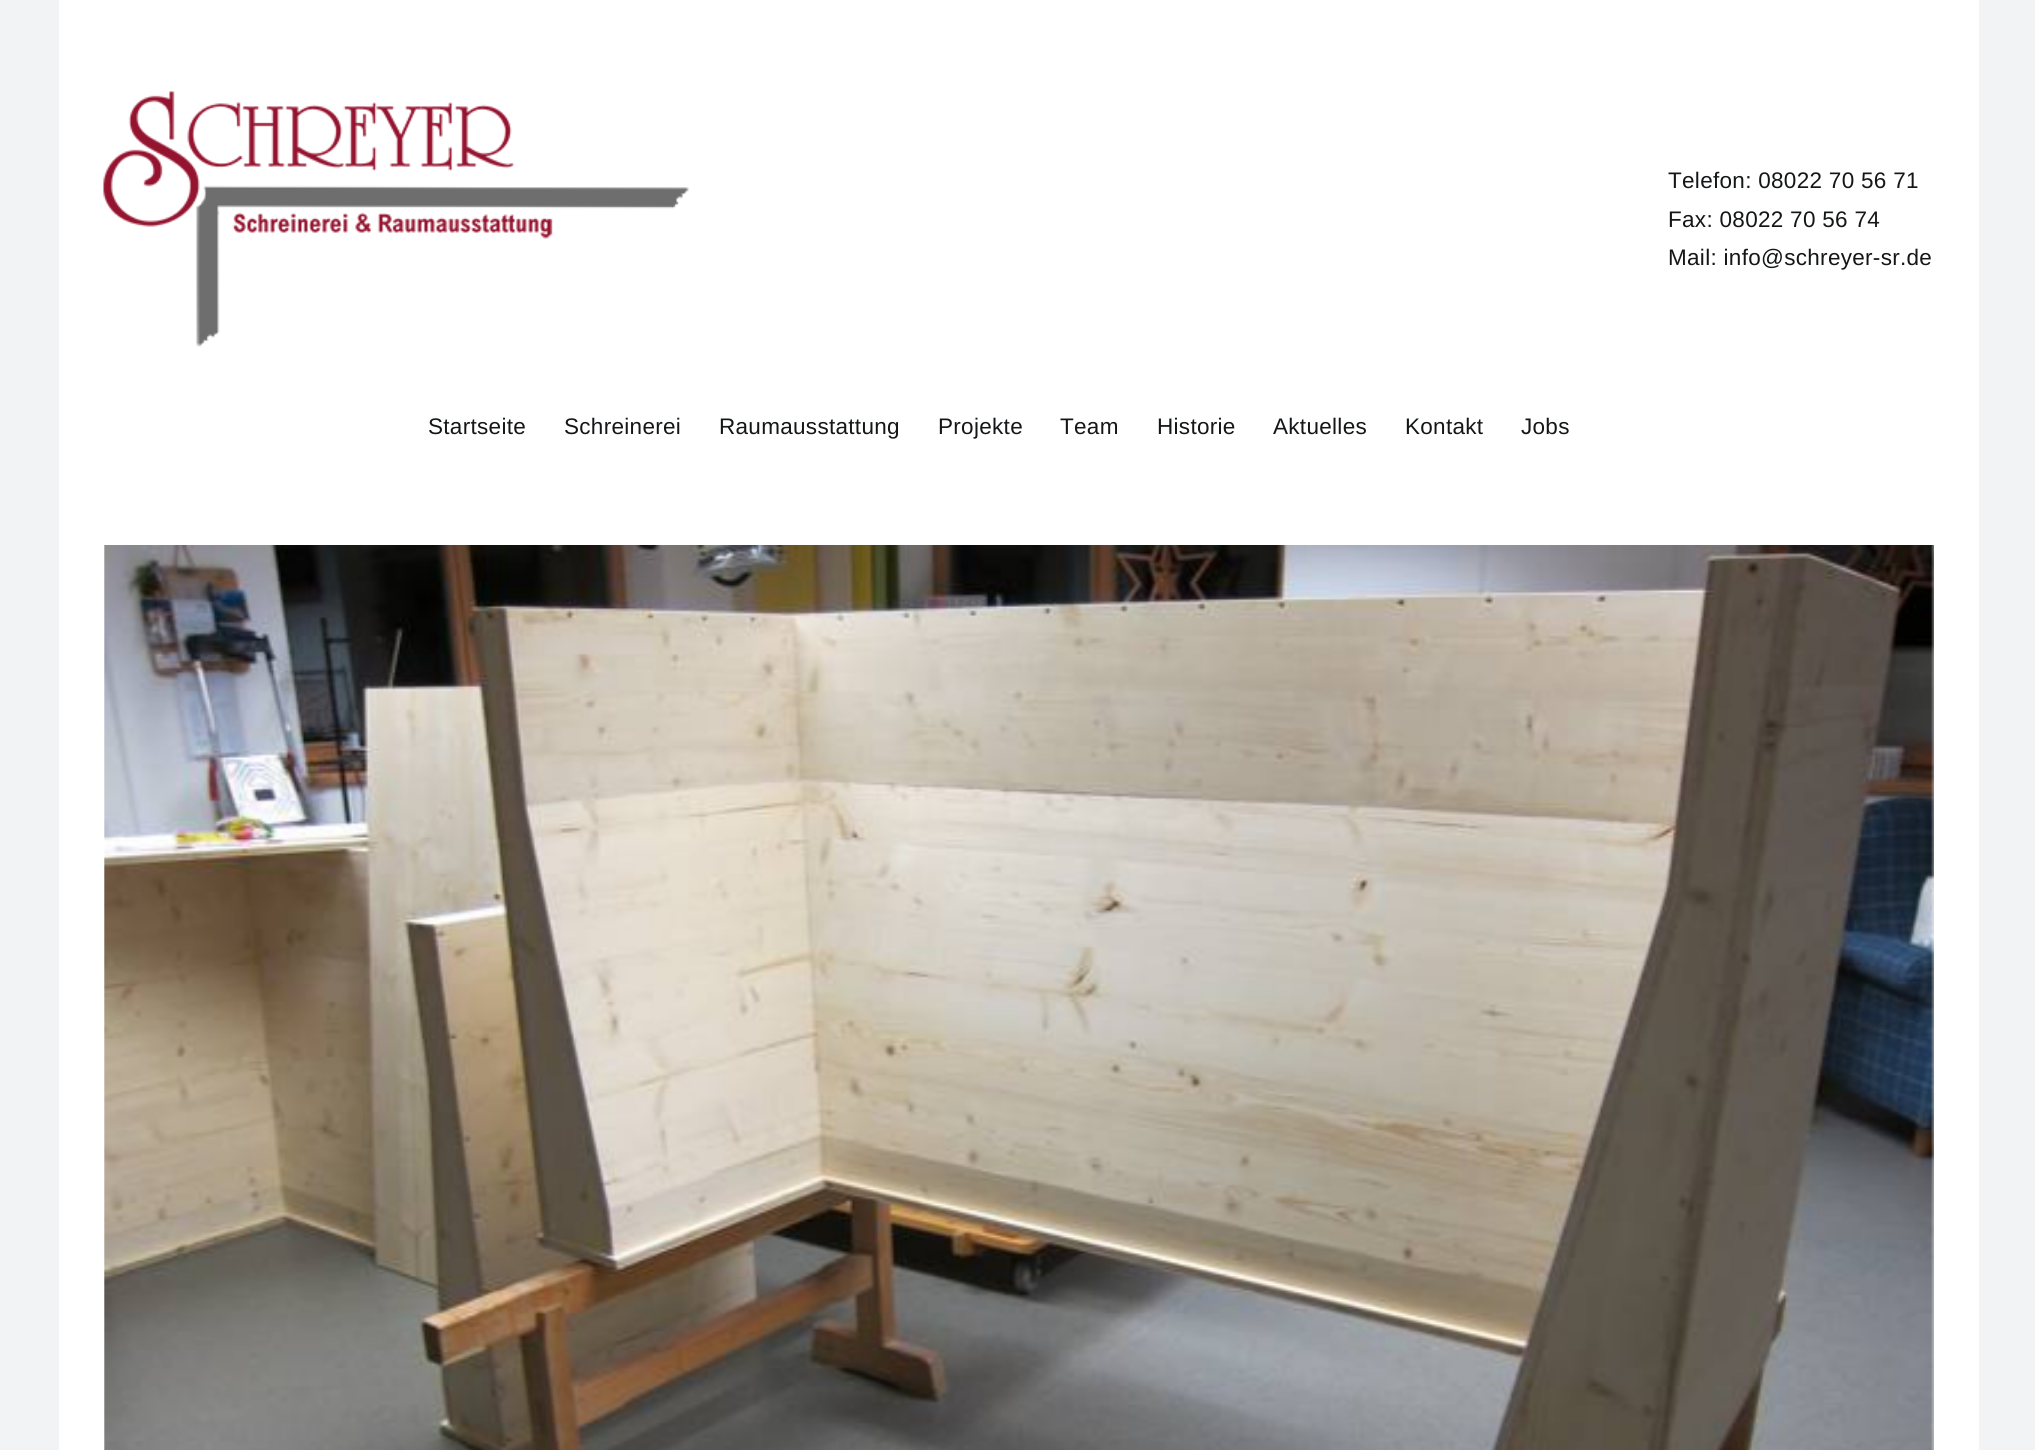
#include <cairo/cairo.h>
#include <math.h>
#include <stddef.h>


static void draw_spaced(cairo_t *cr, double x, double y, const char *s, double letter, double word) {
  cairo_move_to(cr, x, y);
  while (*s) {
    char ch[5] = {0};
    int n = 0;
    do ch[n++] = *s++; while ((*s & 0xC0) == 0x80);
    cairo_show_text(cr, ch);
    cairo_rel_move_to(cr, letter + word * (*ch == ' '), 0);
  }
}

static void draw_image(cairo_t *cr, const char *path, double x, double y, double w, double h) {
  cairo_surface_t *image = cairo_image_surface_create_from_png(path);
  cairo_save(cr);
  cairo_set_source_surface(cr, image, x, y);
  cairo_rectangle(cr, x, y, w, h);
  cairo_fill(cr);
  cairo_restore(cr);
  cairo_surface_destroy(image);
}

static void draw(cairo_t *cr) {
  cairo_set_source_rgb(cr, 242 / 255.0, 243 / 255.0, 245 / 255.0);
  cairo_paint(cr);
  cairo_set_source_rgb(cr, 1, 1, 1);
  cairo_rectangle(cr, 59, 0, 1920, 1450);
  cairo_fill(cr);
  draw_image(cr, "images/1.png", 104, 545, 1830, 905);
  draw_image(cr, "images/2.png", 103, 91, 586, 256);
  cairo_select_font_face(cr, "Liberation Sans", CAIRO_FONT_SLANT_NORMAL, CAIRO_FONT_WEIGHT_NORMAL);
  cairo_set_font_size(cr, 22.5);
  cairo_set_source_rgb(cr, 20 / 255.0, 22 / 255.0, 23 / 255.0);
  draw_spaced(cr, 1668, 188, "Telefon: 08022 70 56 71", 0.3, 0);
  draw_spaced(cr, 1668, 227, "Fax: 08022 70 56 74", 0.3, 0);
  draw_spaced(cr, 1668, 265, "Mail: info@schreyer-sr.de", 0.3, 0);
  draw_spaced(cr, 428, 434, "Startseite", 0.3, 0);
  draw_spaced(cr, 564, 434, "Schreinerei", 0.3, 0);
  draw_spaced(cr, 719, 434, "Raumausstattung", 0.3, 0);
  draw_spaced(cr, 938, 434, "Projekte", 0.3, 0);
  draw_spaced(cr, 1060, 434, "Team", 0.3, 0);
  draw_spaced(cr, 1157, 434, "Historie", 0.3, 0);
  draw_spaced(cr, 1273, 434, "Aktuelles", 0.3, 0);
  draw_spaced(cr, 1405, 434, "Kontakt", 0.3, 0);
  draw_spaced(cr, 1521, 434, "Jobs", 0.3, 0);
}

int main(void) {
  cairo_surface_t *surface = cairo_image_surface_create(CAIRO_FORMAT_RGB24, 2035, 1450);
  cairo_t *cr = cairo_create(surface);
  cairo_font_options_t *options = cairo_font_options_create();
  cairo_font_options_set_hint_metrics(options, CAIRO_HINT_METRICS_OFF);
  cairo_font_options_set_hint_style(options, CAIRO_HINT_STYLE_NONE);
  cairo_set_font_options(cr, options);
  cairo_set_miter_limit(cr, 4);
  draw(cr);
  cairo_surface_write_to_png(surface, "out.png");
  cairo_font_options_destroy(options);
  cairo_destroy(cr);
  cairo_surface_destroy(surface);
  return 0;
}
